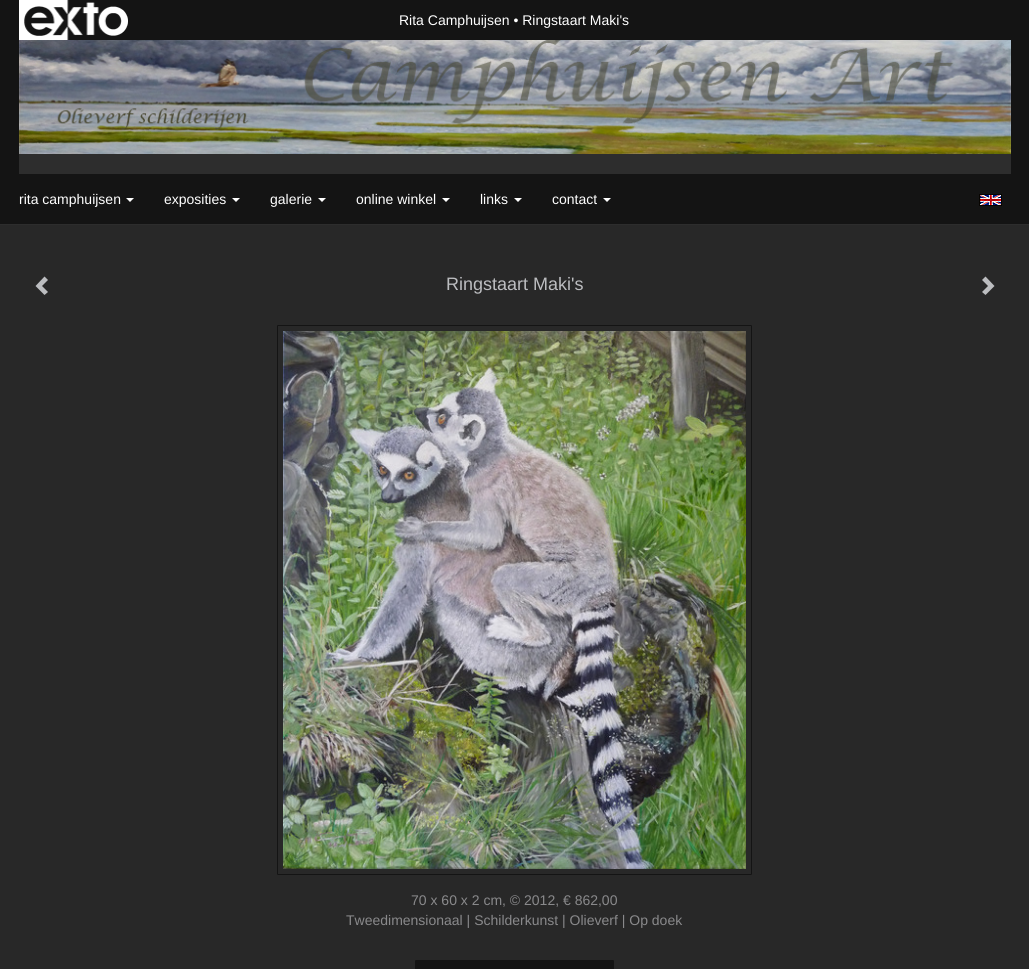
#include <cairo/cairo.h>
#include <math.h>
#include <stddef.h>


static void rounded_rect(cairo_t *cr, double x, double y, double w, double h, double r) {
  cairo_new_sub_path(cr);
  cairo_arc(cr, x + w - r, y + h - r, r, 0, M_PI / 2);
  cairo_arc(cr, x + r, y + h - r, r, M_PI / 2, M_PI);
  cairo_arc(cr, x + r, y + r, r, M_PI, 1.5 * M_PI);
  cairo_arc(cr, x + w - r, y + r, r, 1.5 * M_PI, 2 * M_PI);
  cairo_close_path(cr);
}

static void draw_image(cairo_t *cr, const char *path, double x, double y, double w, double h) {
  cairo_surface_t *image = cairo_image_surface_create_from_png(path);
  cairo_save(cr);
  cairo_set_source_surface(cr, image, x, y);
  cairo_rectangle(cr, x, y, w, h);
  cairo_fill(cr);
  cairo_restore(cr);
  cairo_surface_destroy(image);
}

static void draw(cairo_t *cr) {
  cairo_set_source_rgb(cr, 40 / 255.0, 40 / 255.0, 40 / 255.0);
  cairo_paint(cr);
  cairo_set_source_rgb(cr, 20 / 255.0, 20 / 255.0, 20 / 255.0);
  cairo_rectangle(cr, 0, 0, 1029, 224);
  cairo_fill(cr);
  draw_image(cr, "images/1.png", 19, 0, 109, 40);
  draw_image(cr, "images/2.png", 19, 40, 992, 114);
  cairo_set_source_rgb(cr, 45 / 255.0, 45 / 255.0, 45 / 255.0);
  cairo_rectangle(cr, 19, 154, 992, 20);
  cairo_fill(cr);
  cairo_rectangle(cr, 0, 224, 1029, 1);
  cairo_fill(cr);
  cairo_set_source_rgb(cr, 1, 1, 1);
  cairo_new_path(cr);
  cairo_move_to(cr, 126, 198);
  cairo_line_to(cr, 134, 198);
  cairo_line_to(cr, 130, 202);
  cairo_close_path(cr);
  cairo_fill(cr);
  cairo_new_path(cr);
  cairo_move_to(cr, 232, 198);
  cairo_line_to(cr, 240, 198);
  cairo_line_to(cr, 236, 202);
  cairo_close_path(cr);
  cairo_fill(cr);
  cairo_new_path(cr);
  cairo_move_to(cr, 318, 198);
  cairo_line_to(cr, 326, 198);
  cairo_line_to(cr, 322, 202);
  cairo_close_path(cr);
  cairo_fill(cr);
  cairo_new_path(cr);
  cairo_move_to(cr, 442, 198);
  cairo_line_to(cr, 450, 198);
  cairo_line_to(cr, 446, 202);
  cairo_close_path(cr);
  cairo_fill(cr);
  cairo_new_path(cr);
  cairo_move_to(cr, 514, 198);
  cairo_line_to(cr, 522, 198);
  cairo_line_to(cr, 518, 202);
  cairo_close_path(cr);
  cairo_fill(cr);
  cairo_new_path(cr);
  cairo_move_to(cr, 603, 198);
  cairo_line_to(cr, 611, 198);
  cairo_line_to(cr, 607, 202);
  cairo_close_path(cr);
  cairo_fill(cr);
  draw_image(cr, "images/3.png", 979, 194, 23, 12);
  cairo_set_source_rgb(cr, 188 / 255.0, 189 / 255.0, 192 / 255.0);
  cairo_new_path(cr);
  cairo_move_to(cr, 48, 280);
  cairo_line_to(cr, 42, 286);
  cairo_line_to(cr, 48, 292);
  cairo_line_to(cr, 44.5, 295);
  cairo_line_to(cr, 35.5, 286);
  cairo_line_to(cr, 44.5, 276.5);
  cairo_close_path(cr);
  cairo_fill(cr);
  cairo_new_path(cr);
  cairo_move_to(cr, 994.5, 286);
  cairo_line_to(cr, 985.5, 295);
  cairo_line_to(cr, 982, 292);
  cairo_line_to(cr, 988, 286);
  cairo_line_to(cr, 982, 280);
  cairo_line_to(cr, 985.5, 276.5);
  cairo_close_path(cr);
  cairo_fill(cr);
  rounded_rect(cr, 277.5, 325.5, 474, 549, 0.5);
  cairo_set_source_rgb(cr, 20 / 255.0, 20 / 255.0, 20 / 255.0);
  cairo_set_line_width(cr, 1);
  cairo_stroke(cr);
  draw_image(cr, "images/4.png", 283, 331, 463, 538);
  rounded_rect(cr, 415.5, 960.5, 198, 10, 0.5);
  cairo_fill_preserve(cr);
  cairo_stroke(cr);
  cairo_select_font_face(cr, "Liberation Sans", CAIRO_FONT_SLANT_NORMAL, CAIRO_FONT_WEIGHT_NORMAL);
  cairo_set_font_size(cr, 14);
  cairo_set_source_rgb(cr, 1, 1, 1);
  cairo_move_to(cr, 399, 25);
  cairo_show_text(cr, "Rita Camphuijsen • Ringstaart Maki's");
  cairo_move_to(cr, 19, 204);
  cairo_show_text(cr, "rita camphuijsen");
  cairo_move_to(cr, 164, 204);
  cairo_show_text(cr, "exposities");
  cairo_move_to(cr, 270, 204);
  cairo_show_text(cr, "galerie");
  cairo_move_to(cr, 356, 204);
  cairo_show_text(cr, "online winkel");
  cairo_move_to(cr, 480, 204);
  cairo_show_text(cr, "links");
  cairo_move_to(cr, 552, 204);
  cairo_show_text(cr, "contact");
  cairo_set_font_size(cr, 18);
  cairo_set_source_rgb(cr, 188 / 255.0, 189 / 255.0, 192 / 255.0);
  cairo_move_to(cr, 446, 290);
  cairo_show_text(cr, "Ringstaart Maki's");
  cairo_set_font_size(cr, 14);
  cairo_set_source_rgb(cr, 137 / 255.0, 137 / 255.0, 139 / 255.0);
  cairo_move_to(cr, 411, 905);
  cairo_show_text(cr, "70 x 60 x 2 cm, © 2012, € 862,00");
  cairo_move_to(cr, 346, 925);
  cairo_show_text(cr, "Tweedimensionaal | Schilderkunst | Olieverf | Op doek");
}

int main(void) {
  cairo_surface_t *surface = cairo_image_surface_create(CAIRO_FORMAT_RGB24, 1029, 969);
  cairo_t *cr = cairo_create(surface);
  cairo_font_options_t *options = cairo_font_options_create();
  cairo_font_options_set_hint_metrics(options, CAIRO_HINT_METRICS_OFF);
  cairo_font_options_set_hint_style(options, CAIRO_HINT_STYLE_NONE);
  cairo_set_font_options(cr, options);
  cairo_set_miter_limit(cr, 4);
  draw(cr);
  cairo_surface_write_to_png(surface, "out.png");
  cairo_font_options_destroy(options);
  cairo_destroy(cr);
  cairo_surface_destroy(surface);
  return 0;
}
